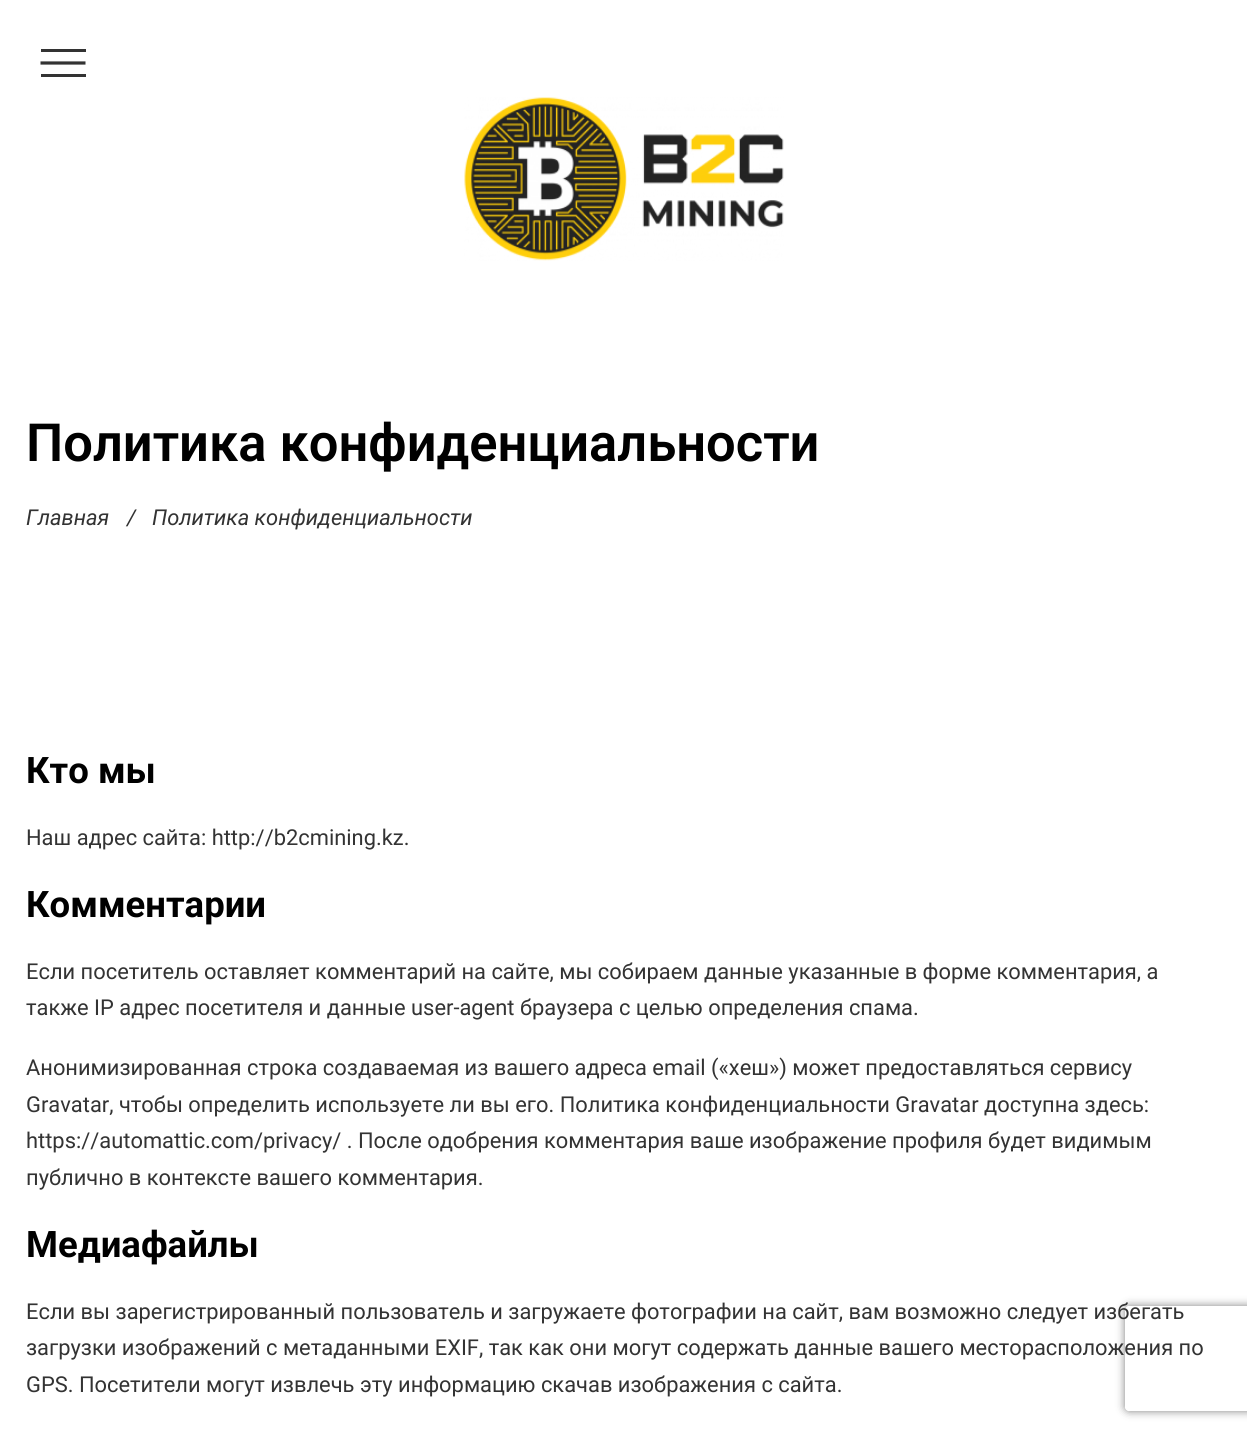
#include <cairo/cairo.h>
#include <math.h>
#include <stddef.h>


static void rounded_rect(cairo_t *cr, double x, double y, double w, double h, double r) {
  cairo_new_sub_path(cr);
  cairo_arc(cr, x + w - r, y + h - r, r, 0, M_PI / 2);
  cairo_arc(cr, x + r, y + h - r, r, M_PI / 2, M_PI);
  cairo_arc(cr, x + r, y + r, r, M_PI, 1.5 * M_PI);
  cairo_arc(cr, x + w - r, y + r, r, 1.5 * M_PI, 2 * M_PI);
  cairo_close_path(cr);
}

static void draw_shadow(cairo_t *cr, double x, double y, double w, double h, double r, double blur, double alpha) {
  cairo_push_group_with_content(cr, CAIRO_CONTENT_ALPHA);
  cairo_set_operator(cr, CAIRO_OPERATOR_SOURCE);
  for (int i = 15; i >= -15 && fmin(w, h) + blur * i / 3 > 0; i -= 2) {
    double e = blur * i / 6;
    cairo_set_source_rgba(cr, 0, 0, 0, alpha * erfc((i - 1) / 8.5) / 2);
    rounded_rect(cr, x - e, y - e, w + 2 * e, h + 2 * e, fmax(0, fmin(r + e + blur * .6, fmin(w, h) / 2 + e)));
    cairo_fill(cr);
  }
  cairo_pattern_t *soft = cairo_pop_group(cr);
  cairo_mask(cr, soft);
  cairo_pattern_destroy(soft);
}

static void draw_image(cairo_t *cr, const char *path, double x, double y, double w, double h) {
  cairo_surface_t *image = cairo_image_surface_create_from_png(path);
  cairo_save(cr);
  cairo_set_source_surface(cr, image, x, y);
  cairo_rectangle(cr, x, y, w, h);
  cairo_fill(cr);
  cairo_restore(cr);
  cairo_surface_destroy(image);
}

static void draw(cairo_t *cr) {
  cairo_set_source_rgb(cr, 1, 1, 1);
  cairo_paint(cr);
  cairo_set_source_rgb(cr, 51 / 255.0, 51 / 255.0, 51 / 255.0);
  cairo_rectangle(cr, 41, 49, 45, 3);
  cairo_fill(cr);
  cairo_rectangle(cr, 41, 74, 45, 3);
  cairo_fill(cr);
  cairo_new_path(cr);
  cairo_move_to(cr, 40.5, 63);
  cairo_line_to(cr, 85.5, 63);
  cairo_set_line_width(cr, 3.2);
  cairo_stroke(cr);
  draw_image(cr, "images/1.png", 464, 97, 320, 164);
  cairo_save(cr);
  cairo_set_fill_rule(cr, CAIRO_FILL_RULE_EVEN_ODD);
  cairo_new_path(cr);
  cairo_move_to(cr, 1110, 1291);
  cairo_line_to(cr, 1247, 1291);
  cairo_line_to(cr, 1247, 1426);
  cairo_line_to(cr, 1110, 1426);
  cairo_close_path(cr);
  cairo_move_to(cr, 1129, 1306);
  cairo_line_to(cr, 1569, 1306);
  cairo_curve_to(cr, 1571, 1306, 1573, 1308, 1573, 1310);
  cairo_line_to(cr, 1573, 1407);
  cairo_curve_to(cr, 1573, 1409, 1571, 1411, 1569, 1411);
  cairo_line_to(cr, 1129, 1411);
  cairo_curve_to(cr, 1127, 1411, 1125, 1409, 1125, 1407);
  cairo_line_to(cr, 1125, 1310);
  cairo_curve_to(cr, 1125, 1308, 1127, 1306, 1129, 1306);
  cairo_close_path(cr);
  cairo_clip(cr);
  cairo_set_source_rgb(cr, 128 / 255.0, 128 / 255.0, 128 / 255.0);
  draw_shadow(cr, 1125, 1306, 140, 105, 4, 4.5, 1);
  cairo_restore(cr);
  cairo_select_font_face(cr, "Roboto SemiBold", CAIRO_FONT_SLANT_NORMAL, CAIRO_FONT_WEIGHT_NORMAL);
  cairo_set_font_size(cr, 52.5);
  cairo_set_source_rgb(cr, 0, 0, 0);
  cairo_move_to(cr, 26, 461);
  cairo_show_text(cr, "Политика конфиденциальности");
  cairo_select_font_face(cr, "Roboto", CAIRO_FONT_SLANT_ITALIC, CAIRO_FONT_WEIGHT_NORMAL);
  cairo_set_font_size(cr, 21.88);
  cairo_set_source_rgb(cr, 51 / 255.0, 51 / 255.0, 51 / 255.0);
  cairo_move_to(cr, 26, 525);
  cairo_show_text(cr, "Главная");
  cairo_move_to(cr, 127, 525);
  cairo_show_text(cr, "/");
  cairo_move_to(cr, 152, 525);
  cairo_show_text(cr, "Политика конфиденциальности");
  cairo_select_font_face(cr, "Roboto", CAIRO_FONT_SLANT_NORMAL, CAIRO_FONT_WEIGHT_BOLD);
  cairo_set_font_size(cr, 36.5);
  cairo_set_source_rgb(cr, 0, 0, 0);
  cairo_move_to(cr, 26, 783);
  cairo_show_text(cr, "Кто мы");
  cairo_select_font_face(cr, "Roboto", CAIRO_FONT_SLANT_NORMAL, CAIRO_FONT_WEIGHT_NORMAL);
  cairo_set_font_size(cr, 21.88);
  cairo_set_source_rgb(cr, 51 / 255.0, 51 / 255.0, 51 / 255.0);
  cairo_move_to(cr, 26, 845);
  cairo_show_text(cr, "Наш адрес сайта: http://b2cmining.kz.");
  cairo_select_font_face(cr, "Roboto", CAIRO_FONT_SLANT_NORMAL, CAIRO_FONT_WEIGHT_BOLD);
  cairo_set_font_size(cr, 36.5);
  cairo_set_source_rgb(cr, 0, 0, 0);
  cairo_move_to(cr, 26, 917);
  cairo_show_text(cr, "Комментарии");
  cairo_select_font_face(cr, "Roboto", CAIRO_FONT_SLANT_NORMAL, CAIRO_FONT_WEIGHT_NORMAL);
  cairo_set_font_size(cr, 21.88);
  cairo_set_source_rgb(cr, 51 / 255.0, 51 / 255.0, 51 / 255.0);
  cairo_move_to(cr, 26, 979);
  cairo_show_text(cr, "Если посетитель оставляет комментарий на сайте, мы собираем данные указанные в форме комментария, а");
  cairo_move_to(cr, 26, 1015);
  cairo_show_text(cr, "также IP адрес посетителя и данные user-agent браузера с целью определения спама.");
  cairo_move_to(cr, 26, 1075);
  cairo_show_text(cr, "Анонимизированная строка создаваемая из вашего адреса email («хеш») может предоставляться сервису");
  cairo_move_to(cr, 26, 1112);
  cairo_show_text(cr, "Gravatar, чтобы определить используете ли вы его. Политика конфиденциальности Gravatar доступна здесь:");
  cairo_move_to(cr, 26, 1148);
  cairo_show_text(cr, "https://automattic.com/privacy/ . После одобрения комментария ваше изображение профиля будет видимым");
  cairo_move_to(cr, 26, 1185);
  cairo_show_text(cr, "публично в контексте вашего комментария.");
  cairo_select_font_face(cr, "Roboto", CAIRO_FONT_SLANT_NORMAL, CAIRO_FONT_WEIGHT_BOLD);
  cairo_set_font_size(cr, 36.5);
  cairo_set_source_rgb(cr, 0, 0, 0);
  cairo_move_to(cr, 26, 1257);
  cairo_show_text(cr, "Медиафайлы");
  cairo_select_font_face(cr, "Roboto", CAIRO_FONT_SLANT_NORMAL, CAIRO_FONT_WEIGHT_NORMAL);
  cairo_set_font_size(cr, 21.88);
  cairo_set_source_rgb(cr, 51 / 255.0, 51 / 255.0, 51 / 255.0);
  cairo_move_to(cr, 26, 1319);
  cairo_show_text(cr, "Если вы зарегистрированный пользователь и загружаете фотографии на сайт, вам возможно следует избегать");
  cairo_move_to(cr, 26, 1355);
  cairo_show_text(cr, "загрузки изображений с метаданными EXIF, так как они могут содержать данные вашего месторасположения по");
  cairo_move_to(cr, 26, 1392);
  cairo_show_text(cr, "GPS. Посетители могут извлечь эту информацию скачав изображения с сайта.");
}

int main(void) {
  cairo_surface_t *surface = cairo_image_surface_create(CAIRO_FORMAT_RGB24, 1247, 1435);
  cairo_t *cr = cairo_create(surface);
  cairo_font_options_t *options = cairo_font_options_create();
  cairo_font_options_set_hint_metrics(options, CAIRO_HINT_METRICS_OFF);
  cairo_font_options_set_hint_style(options, CAIRO_HINT_STYLE_NONE);
  cairo_set_font_options(cr, options);
  cairo_set_miter_limit(cr, 4);
  draw(cr);
  cairo_surface_write_to_png(surface, "out.png");
  cairo_font_options_destroy(options);
  cairo_destroy(cr);
  cairo_surface_destroy(surface);
  return 0;
}
